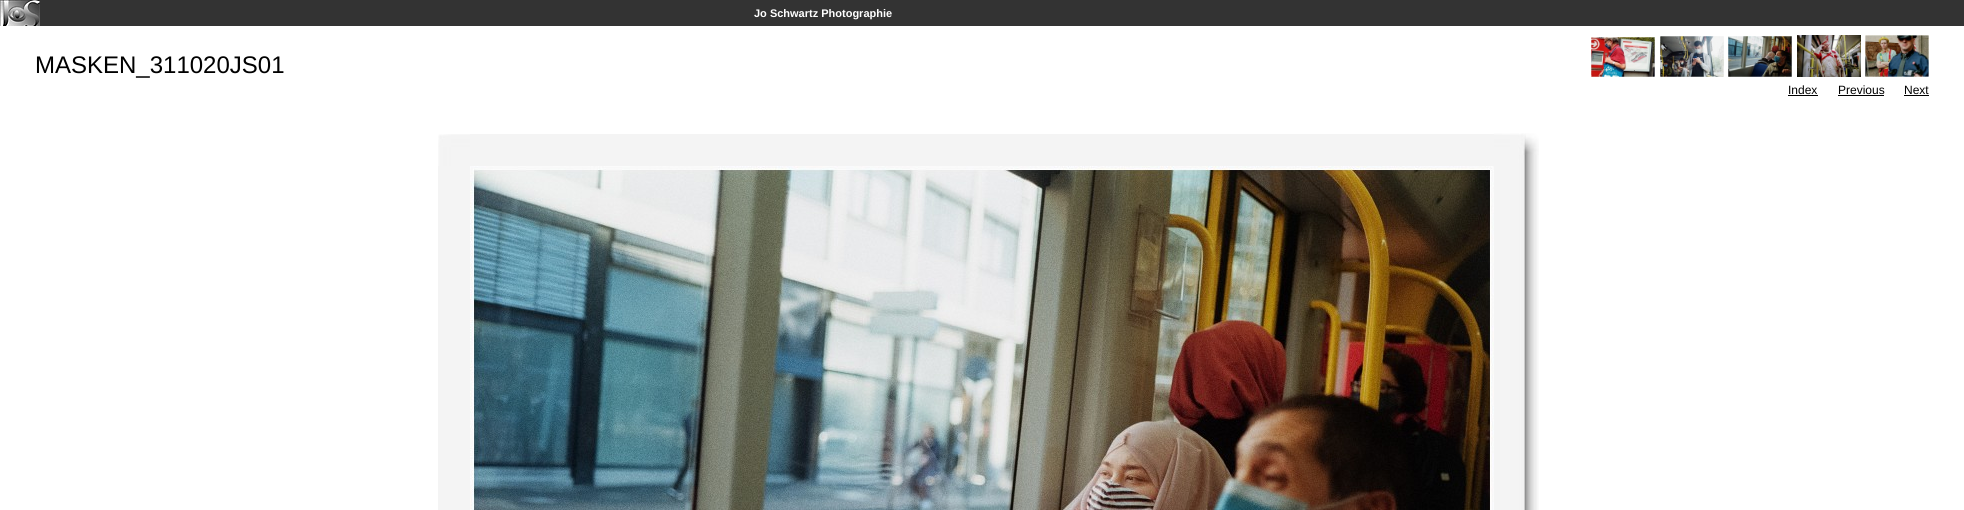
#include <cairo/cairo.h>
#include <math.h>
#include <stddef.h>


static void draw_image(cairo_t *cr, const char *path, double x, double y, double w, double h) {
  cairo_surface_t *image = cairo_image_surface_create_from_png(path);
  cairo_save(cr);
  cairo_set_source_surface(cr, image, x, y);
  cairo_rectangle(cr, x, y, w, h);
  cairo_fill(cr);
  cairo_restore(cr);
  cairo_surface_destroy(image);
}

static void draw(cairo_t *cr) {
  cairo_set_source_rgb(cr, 1, 1, 1);
  cairo_paint(cr);
  cairo_set_source_rgb(cr, 51 / 255.0, 51 / 255.0, 51 / 255.0);
  cairo_rectangle(cr, 40, 0, 1924, 26);
  cairo_fill(cr);
  draw_image(cr, "images/1.png", 0, 0, 40, 26);
  draw_image(cr, "images/2.png", 1591, 37, 64, 40);
  draw_image(cr, "images/3.png", 1660, 36, 64, 41);
  draw_image(cr, "images/4.png", 1728, 36, 64, 41);
  draw_image(cr, "images/5.png", 1797, 35, 64, 42);
  draw_image(cr, "images/6.png", 1865, 35, 64, 42);
  cairo_set_source_rgb(cr, 0, 0, 0);
  cairo_rectangle(cr, 1788, 95, 30, 1);
  cairo_fill(cr);
  cairo_rectangle(cr, 1838, 95, 46, 1);
  cairo_fill(cr);
  cairo_rectangle(cr, 1904, 95, 25, 1);
  cairo_fill(cr);
  draw_image(cr, "images/7.png", 438, 134, 32, 32);
  cairo_set_source_rgb(cr, 244 / 255.0, 244 / 255.0, 244 / 255.0);
  cairo_rectangle(cr, 470, 134, 1024, 32);
  cairo_fill(cr);
  draw_image(cr, "images/8.png", 1494, 133, 45, 33);
  cairo_rectangle(cr, 438, 166, 32, 344);
  cairo_fill(cr);
  draw_image(cr, "images/9.png", 470, 166, 1024, 344);
  draw_image(cr, "images/10.png", 1494, 166, 45, 344);
  cairo_select_font_face(cr, "Liberation Sans", CAIRO_FONT_SLANT_NORMAL, CAIRO_FONT_WEIGHT_BOLD);
  cairo_set_font_size(cr, 11);
  cairo_set_source_rgb(cr, 1, 1, 1);
  cairo_move_to(cr, 754, 17);
  cairo_show_text(cr, "Jo Schwartz Photographie");
  cairo_select_font_face(cr, "Liberation Sans", CAIRO_FONT_SLANT_NORMAL, CAIRO_FONT_WEIGHT_NORMAL);
  cairo_set_font_size(cr, 24);
  cairo_set_source_rgb(cr, 0, 0, 0);
  cairo_move_to(cr, 35, 73);
  cairo_show_text(cr, "MASKEN_311020JS01");
  cairo_set_font_size(cr, 12);
  cairo_move_to(cr, 1788, 94);
  cairo_show_text(cr, "Index");
  cairo_move_to(cr, 1838, 94);
  cairo_show_text(cr, "Previous");
  cairo_move_to(cr, 1904, 94);
  cairo_show_text(cr, "Next");
}

int main(void) {
  cairo_surface_t *surface = cairo_image_surface_create(CAIRO_FORMAT_RGB24, 1964, 510);
  cairo_t *cr = cairo_create(surface);
  cairo_font_options_t *options = cairo_font_options_create();
  cairo_font_options_set_hint_metrics(options, CAIRO_HINT_METRICS_OFF);
  cairo_font_options_set_hint_style(options, CAIRO_HINT_STYLE_NONE);
  cairo_set_font_options(cr, options);
  cairo_set_miter_limit(cr, 4);
  draw(cr);
  cairo_surface_write_to_png(surface, "out.png");
  cairo_font_options_destroy(options);
  cairo_destroy(cr);
  cairo_surface_destroy(surface);
  return 0;
}
